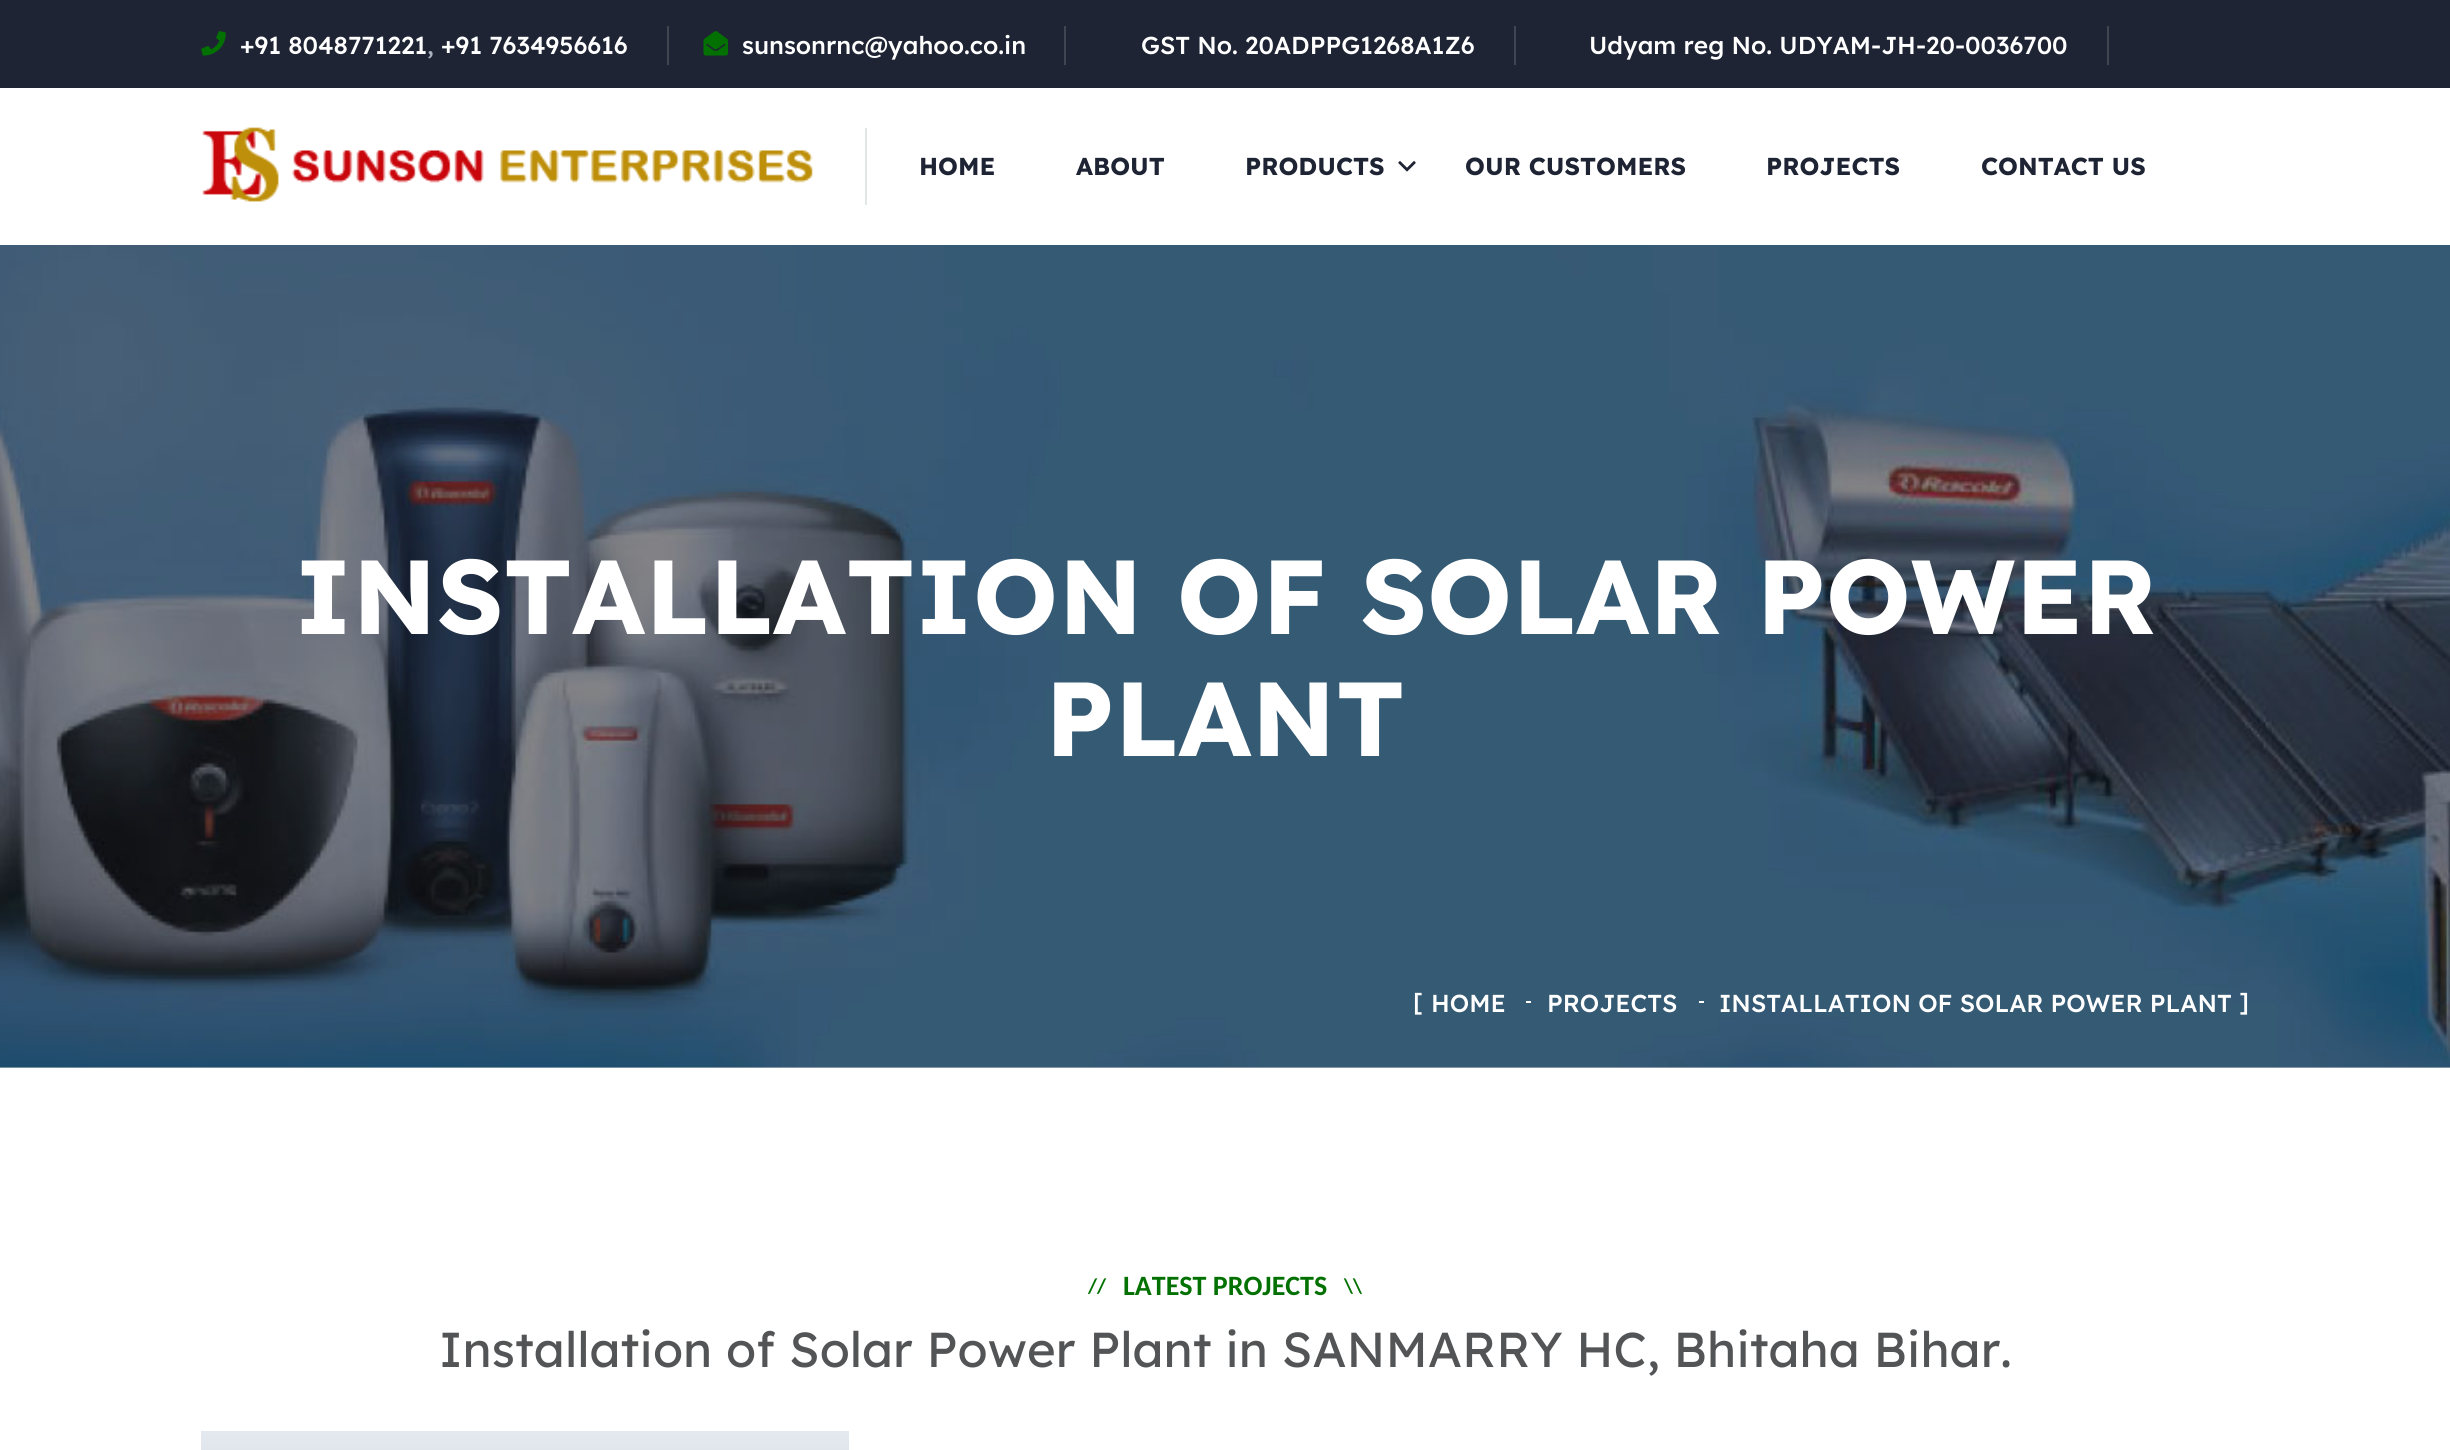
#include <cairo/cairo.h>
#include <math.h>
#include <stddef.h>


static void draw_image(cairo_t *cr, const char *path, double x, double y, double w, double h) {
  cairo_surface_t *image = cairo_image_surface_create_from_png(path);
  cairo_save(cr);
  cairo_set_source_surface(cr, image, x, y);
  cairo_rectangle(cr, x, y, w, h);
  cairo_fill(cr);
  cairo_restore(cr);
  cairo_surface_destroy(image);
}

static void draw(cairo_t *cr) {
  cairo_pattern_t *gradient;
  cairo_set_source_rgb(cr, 1, 1, 1);
  cairo_paint(cr);
  cairo_set_source_rgb(cr, 210 / 255.0, 211 / 255.0, 214 / 255.0);
  cairo_rectangle(cr, 0, 1067, 2450, 1);
  cairo_fill(cr);
  cairo_set_source_rgb(cr, 30 / 255.0, 36 / 255.0, 52 / 255.0);
  cairo_rectangle(cr, 0, 0, 2450, 88);
  cairo_fill(cr);
  draw_image(cr, "images/1.png", 201, 31, 25, 25);
  cairo_set_source_rgb(cr, 64 / 255.0, 69 / 255.0, 82 / 255.0);
  cairo_rectangle(cr, 667, 26, 2, 39);
  cairo_fill(cr);
  draw_image(cr, "images/2.png", 703, 31, 25, 25);
  cairo_rectangle(cr, 1064, 26, 2, 39);
  cairo_fill(cr);
  cairo_rectangle(cr, 1514, 26, 2, 39);
  cairo_fill(cr);
  cairo_rectangle(cr, 2107, 26, 2, 39);
  cairo_fill(cr);
  draw_image(cr, "images/3.png", 202, 127, 611, 75);
  cairo_set_source_rgb(cr, 225 / 255.0, 232 / 255.0, 228 / 255.0);
  cairo_rectangle(cr, 865, 128, 2, 77);
  cairo_fill(cr);
  draw_image(cr, "images/4.png", 1398, 161, 18, 11);
  draw_image(cr, "images/5.png", 0, 245, 2450, 823);
  cairo_set_source_rgb(cr, 1, 1, 1);
  cairo_rectangle(cr, 1526, 1001, 5, 2);
  cairo_fill(cr);
  cairo_rectangle(cr, 1699, 1001, 5, 2);
  cairo_fill(cr);
  cairo_set_source_rgb(cr, 228 / 255.0, 233 / 255.0, 239 / 255.0);
  cairo_rectangle(cr, 201, 1431, 648, 1);
  cairo_fill(cr);
  gradient = cairo_pattern_create_linear(525, 1432, 525, 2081);
  cairo_pattern_add_color_stop_rgba(gradient, 0, 228 / 255.0, 233 / 255.0, 239 / 255.0, 1);
  cairo_pattern_add_color_stop_rgba(gradient, 1, 129 / 255.0, 135 / 255.0, 146 / 255.0, 1);
  cairo_set_source(cr, gradient);
  cairo_pattern_destroy(gradient);
  cairo_rectangle(cr, 201, 1432, 648, 18);
  cairo_fill(cr);
  cairo_select_font_face(cr, "Lexend Medium", CAIRO_FONT_SLANT_NORMAL, CAIRO_FONT_WEIGHT_NORMAL);
  cairo_set_font_size(cr, 24.5);
  cairo_set_source_rgb(cr, 1, 1, 1);
  cairo_move_to(cr, 240, 54);
  cairo_show_text(cr, "+91 8048771221");
  cairo_set_source_rgb(cr, 170 / 255.0, 176 / 255.0, 191 / 255.0);
  cairo_move_to(cr, 427, 54);
  cairo_show_text(cr, ",");
  cairo_set_source_rgb(cr, 1, 1, 1);
  cairo_move_to(cr, 441, 54);
  cairo_show_text(cr, "+91 7634956616");
  cairo_move_to(cr, 742, 54);
  cairo_show_text(cr, "sunsonrnc@yahoo.co.in");
  cairo_move_to(cr, 1141, 54);
  cairo_show_text(cr, "GST No. 20ADPPG1268A1Z6");
  cairo_move_to(cr, 1589, 54);
  cairo_show_text(cr, "Udyam reg No. UDYAM-JH-20-0036700");
  cairo_select_font_face(cr, "Lexend", CAIRO_FONT_SLANT_NORMAL, CAIRO_FONT_WEIGHT_BOLD);
  cairo_set_source_rgb(cr, 30 / 255.0, 36 / 255.0, 52 / 255.0);
  cairo_move_to(cr, 919, 175);
  cairo_show_text(cr, "HOME");
  cairo_move_to(cr, 1076, 175);
  cairo_show_text(cr, "ABOUT");
  cairo_move_to(cr, 1245, 175);
  cairo_show_text(cr, "PRODUCTS");
  cairo_move_to(cr, 1465, 175);
  cairo_show_text(cr, "OUR CUSTOMERS");
  cairo_move_to(cr, 1766, 175);
  cairo_show_text(cr, "PROJECTS");
  cairo_move_to(cr, 1981, 175);
  cairo_show_text(cr, "CONTACT US");
  cairo_set_font_size(cr, 105);
  cairo_set_source_rgb(cr, 1, 1, 1);
  cairo_move_to(cr, 294, 634);
  cairo_show_text(cr, "INSTALLATION OF SOLAR POWER");
  cairo_move_to(cr, 1045, 756);
  cairo_show_text(cr, "PLANT");
  cairo_select_font_face(cr, "Lexend Medium", CAIRO_FONT_SLANT_NORMAL, CAIRO_FONT_WEIGHT_NORMAL);
  cairo_set_font_size(cr, 24.5);
  cairo_move_to(cr, 1413, 1010);
  cairo_show_text(cr, "[");
  cairo_move_to(cr, 1431, 1012);
  cairo_show_text(cr, "HOME");
  cairo_move_to(cr, 1547, 1012);
  cairo_show_text(cr, "PROJECTS");
  cairo_move_to(cr, 1719, 1012);
  cairo_show_text(cr, "INSTALLATION OF SOLAR POWER PLANT");
  cairo_move_to(cr, 2239, 1010);
  cairo_show_text(cr, "]");
  cairo_select_font_face(cr, "Carlito", CAIRO_FONT_SLANT_NORMAL, CAIRO_FONT_WEIGHT_BOLD);
  cairo_set_font_size(cr, 28);
  cairo_set_source_rgb(cr, 2 / 255.0, 113 / 255.0, 2 / 255.0);
  cairo_move_to(cr, 1123, 1295);
  cairo_show_text(cr, "LATEST PROJECTS");
  cairo_set_font_size(cr, 21);
  cairo_move_to(cr, 1088, 1293);
  cairo_show_text(cr, "//");
  cairo_move_to(cr, 1344, 1293);
  cairo_show_text(cr, "\\\\");
  cairo_select_font_face(cr, "Lexend", CAIRO_FONT_SLANT_NORMAL, CAIRO_FONT_WEIGHT_NORMAL);
  cairo_set_font_size(cr, 49);
  cairo_set_source_rgb(cr, 82 / 255.0, 84 / 255.0, 86 / 255.0);
  cairo_move_to(cr, 439, 1367);
  cairo_show_text(cr, "Installation of Solar Power Plant in SANMARRY HC, Bhitaha Bihar.");
}

int main(void) {
  cairo_surface_t *surface = cairo_image_surface_create(CAIRO_FORMAT_RGB24, 2450, 1450);
  cairo_t *cr = cairo_create(surface);
  cairo_font_options_t *options = cairo_font_options_create();
  cairo_font_options_set_hint_metrics(options, CAIRO_HINT_METRICS_OFF);
  cairo_font_options_set_hint_style(options, CAIRO_HINT_STYLE_NONE);
  cairo_set_font_options(cr, options);
  cairo_set_miter_limit(cr, 4);
  draw(cr);
  cairo_surface_write_to_png(surface, "out.png");
  cairo_font_options_destroy(options);
  cairo_destroy(cr);
  cairo_surface_destroy(surface);
  return 0;
}
